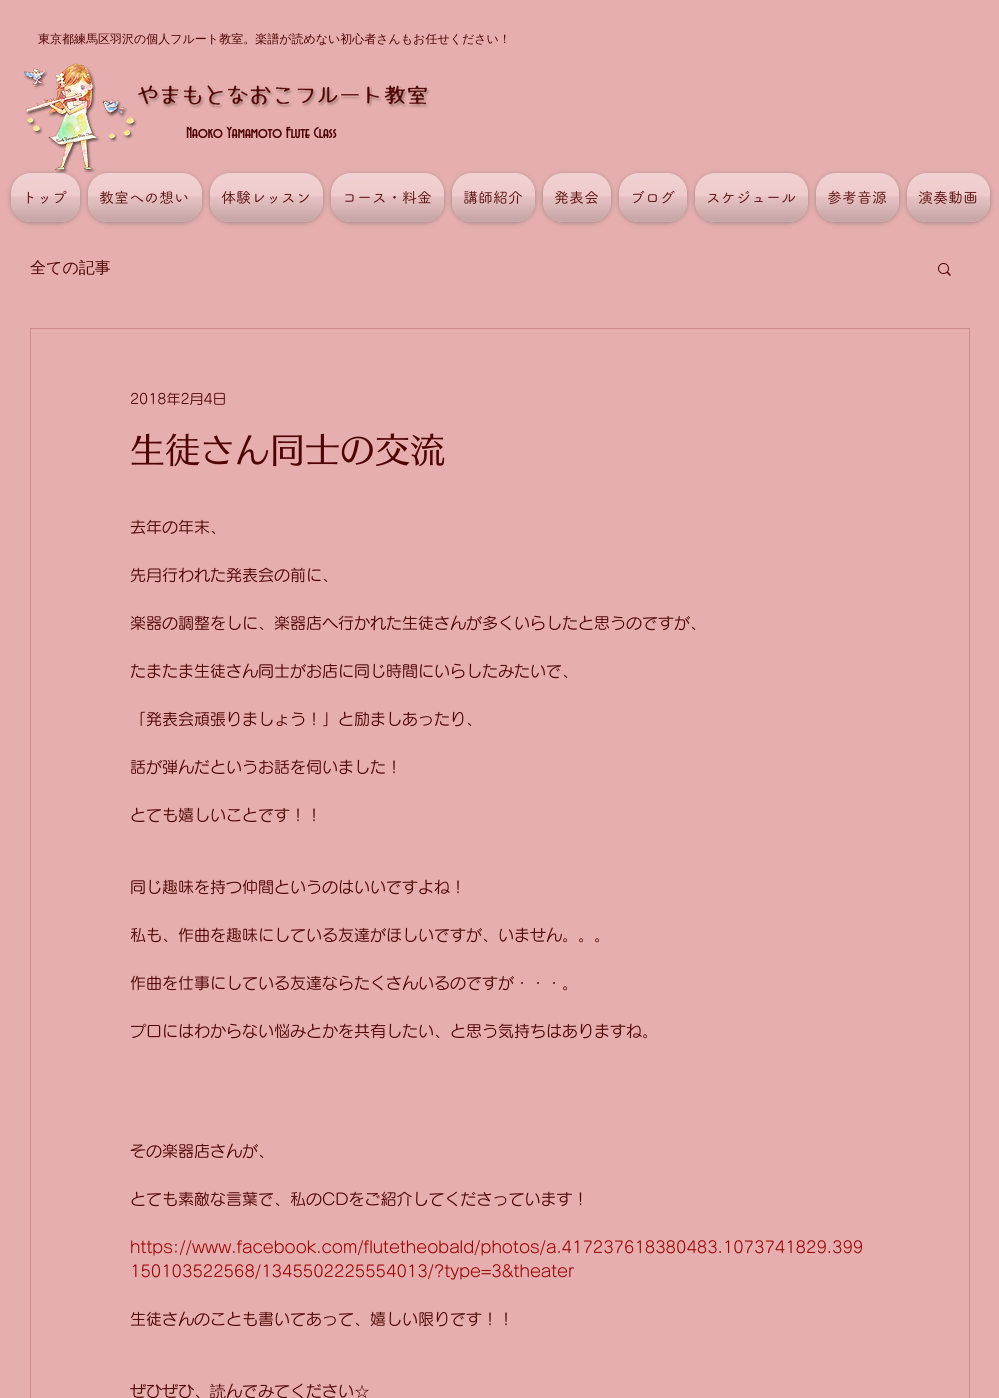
#include <cairo/cairo.h>
#include <math.h>
#include <stddef.h>


static void rounded_rect(cairo_t *cr, double x, double y, double w, double h, double r) {
  cairo_new_sub_path(cr);
  cairo_arc(cr, x + w - r, y + h - r, r, 0, M_PI / 2);
  cairo_arc(cr, x + r, y + h - r, r, M_PI / 2, M_PI);
  cairo_arc(cr, x + r, y + r, r, M_PI, 1.5 * M_PI);
  cairo_arc(cr, x + w - r, y + r, r, 1.5 * M_PI, 2 * M_PI);
  cairo_close_path(cr);
}

static void draw_shadow(cairo_t *cr, double x, double y, double w, double h, double r, double blur, double alpha) {
  cairo_push_group_with_content(cr, CAIRO_CONTENT_ALPHA);
  cairo_set_operator(cr, CAIRO_OPERATOR_SOURCE);
  for (int i = 15; i >= -15 && fmin(w, h) + blur * i / 3 > 0; i -= 2) {
    double e = blur * i / 6;
    cairo_set_source_rgba(cr, 0, 0, 0, alpha * erfc((i - 1) / 8.5) / 2);
    rounded_rect(cr, x - e, y - e, w + 2 * e, h + 2 * e, fmax(0, fmin(r + e + blur * .6, fmin(w, h) / 2 + e)));
    cairo_fill(cr);
  }
  cairo_pattern_t *soft = cairo_pop_group(cr);
  cairo_mask(cr, soft);
  cairo_pattern_destroy(soft);
}

static void draw_image(cairo_t *cr, const char *path, double x, double y, double w, double h) {
  cairo_surface_t *image = cairo_image_surface_create_from_png(path);
  cairo_save(cr);
  cairo_set_source_surface(cr, image, x, y);
  cairo_rectangle(cr, x, y, w, h);
  cairo_fill(cr);
  cairo_restore(cr);
  cairo_surface_destroy(image);
}

static void draw(cairo_t *cr) {
  cairo_set_source_rgb(cr, 230 / 255.0, 174 / 255.0, 174 / 255.0);
  cairo_paint(cr);
  draw_image(cr, "images/1.png", 23, 63, 114, 111);
  draw_image(cr, "images/2.png", 137, 85, 293, 24);
  cairo_save(cr);
  cairo_set_fill_rule(cr, CAIRO_FILL_RULE_EVEN_ODD);
  cairo_new_path(cr);
  cairo_move_to(cr, 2, 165);
  cairo_line_to(cr, 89, 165);
  cairo_line_to(cr, 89, 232);
  cairo_line_to(cr, 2, 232);
  cairo_close_path(cr);
  cairo_move_to(cr, 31, 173);
  cairo_line_to(cr, 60, 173);
  cairo_curve_to(cr, 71, 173, 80, 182, 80, 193);
  cairo_line_to(cr, 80, 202);
  cairo_curve_to(cr, 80, 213, 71, 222, 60, 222);
  cairo_line_to(cr, 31, 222);
  cairo_curve_to(cr, 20, 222, 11, 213, 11, 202);
  cairo_line_to(cr, 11, 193);
  cairo_curve_to(cr, 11, 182, 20, 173, 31, 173);
  cairo_close_path(cr);
  cairo_clip(cr);
  cairo_set_source_rgb(cr, 107 / 255.0, 106 / 255.0, 106 / 255.0);
  draw_shadow(cr, 11, 174, 69, 49, 20, 2.5, 0.6);
  cairo_restore(cr);
  cairo_set_source_rgba(cr, 1, 1, 1, 0.3);
  rounded_rect(cr, 11, 173, 69, 49, 20);
  cairo_fill(cr);
  draw_image(cr, "images/3.png", 11, 173, 69, 24);
  draw_image(cr, "images/4.png", 11, 196, 69, 26);
  cairo_save(cr);
  cairo_set_fill_rule(cr, CAIRO_FILL_RULE_EVEN_ODD);
  cairo_new_path(cr);
  cairo_move_to(cr, 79, 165);
  cairo_line_to(cr, 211, 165);
  cairo_line_to(cr, 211, 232);
  cairo_line_to(cr, 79, 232);
  cairo_close_path(cr);
  cairo_move_to(cr, 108, 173);
  cairo_line_to(cr, 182, 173);
  cairo_curve_to(cr, 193, 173, 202, 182, 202, 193);
  cairo_line_to(cr, 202, 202);
  cairo_curve_to(cr, 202, 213, 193, 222, 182, 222);
  cairo_line_to(cr, 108, 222);
  cairo_curve_to(cr, 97, 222, 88, 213, 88, 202);
  cairo_line_to(cr, 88, 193);
  cairo_curve_to(cr, 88, 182, 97, 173, 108, 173);
  cairo_close_path(cr);
  cairo_clip(cr);
  cairo_set_source_rgb(cr, 107 / 255.0, 106 / 255.0, 106 / 255.0);
  draw_shadow(cr, 88, 174, 114, 49, 20, 2.5, 0.6);
  cairo_restore(cr);
  rounded_rect(cr, 88, 173, 114, 49, 20);
  cairo_fill(cr);
  draw_image(cr, "images/5.png", 88, 173, 114, 24);
  draw_image(cr, "images/6.png", 88, 196, 114, 26);
  cairo_save(cr);
  cairo_set_fill_rule(cr, CAIRO_FILL_RULE_EVEN_ODD);
  cairo_new_path(cr);
  cairo_move_to(cr, 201, 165);
  cairo_line_to(cr, 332, 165);
  cairo_line_to(cr, 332, 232);
  cairo_line_to(cr, 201, 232);
  cairo_close_path(cr);
  cairo_move_to(cr, 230, 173);
  cairo_line_to(cr, 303, 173);
  cairo_curve_to(cr, 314, 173, 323, 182, 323, 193);
  cairo_line_to(cr, 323, 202);
  cairo_curve_to(cr, 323, 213, 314, 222, 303, 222);
  cairo_line_to(cr, 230, 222);
  cairo_curve_to(cr, 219, 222, 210, 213, 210, 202);
  cairo_line_to(cr, 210, 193);
  cairo_curve_to(cr, 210, 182, 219, 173, 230, 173);
  cairo_close_path(cr);
  cairo_clip(cr);
  cairo_set_source_rgb(cr, 107 / 255.0, 106 / 255.0, 106 / 255.0);
  draw_shadow(cr, 210, 174, 113, 49, 20, 2.5, 0.6);
  cairo_restore(cr);
  rounded_rect(cr, 210, 173, 113, 49, 20);
  cairo_fill(cr);
  draw_image(cr, "images/7.png", 210, 173, 113, 24);
  draw_image(cr, "images/8.png", 210, 196, 113, 26);
  cairo_save(cr);
  cairo_set_fill_rule(cr, CAIRO_FILL_RULE_EVEN_ODD);
  cairo_new_path(cr);
  cairo_move_to(cr, 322, 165);
  cairo_line_to(cr, 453, 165);
  cairo_line_to(cr, 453, 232);
  cairo_line_to(cr, 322, 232);
  cairo_close_path(cr);
  cairo_move_to(cr, 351, 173);
  cairo_line_to(cr, 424, 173);
  cairo_curve_to(cr, 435, 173, 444, 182, 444, 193);
  cairo_line_to(cr, 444, 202);
  cairo_curve_to(cr, 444, 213, 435, 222, 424, 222);
  cairo_line_to(cr, 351, 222);
  cairo_curve_to(cr, 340, 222, 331, 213, 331, 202);
  cairo_line_to(cr, 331, 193);
  cairo_curve_to(cr, 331, 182, 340, 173, 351, 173);
  cairo_close_path(cr);
  cairo_clip(cr);
  cairo_set_source_rgb(cr, 107 / 255.0, 106 / 255.0, 106 / 255.0);
  draw_shadow(cr, 331, 174, 113, 49, 20, 2.5, 0.6);
  cairo_restore(cr);
  rounded_rect(cr, 331, 173, 113, 49, 20);
  cairo_fill(cr);
  draw_image(cr, "images/9.png", 331, 173, 113, 24);
  draw_image(cr, "images/8.png", 331, 196, 113, 26);
  cairo_save(cr);
  cairo_set_fill_rule(cr, CAIRO_FILL_RULE_EVEN_ODD);
  cairo_new_path(cr);
  cairo_move_to(cr, 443, 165);
  cairo_line_to(cr, 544, 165);
  cairo_line_to(cr, 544, 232);
  cairo_line_to(cr, 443, 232);
  cairo_close_path(cr);
  cairo_move_to(cr, 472, 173);
  cairo_line_to(cr, 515, 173);
  cairo_curve_to(cr, 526, 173, 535, 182, 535, 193);
  cairo_line_to(cr, 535, 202);
  cairo_curve_to(cr, 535, 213, 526, 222, 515, 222);
  cairo_line_to(cr, 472, 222);
  cairo_curve_to(cr, 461, 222, 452, 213, 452, 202);
  cairo_line_to(cr, 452, 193);
  cairo_curve_to(cr, 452, 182, 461, 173, 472, 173);
  cairo_close_path(cr);
  cairo_clip(cr);
  cairo_set_source_rgb(cr, 107 / 255.0, 106 / 255.0, 106 / 255.0);
  draw_shadow(cr, 452, 174, 83, 49, 20, 2.5, 0.6);
  cairo_restore(cr);
  rounded_rect(cr, 452, 173, 83, 49, 20);
  cairo_fill(cr);
  draw_image(cr, "images/10.png", 452, 173, 83, 24);
  draw_image(cr, "images/11.png", 452, 196, 83, 26);
  cairo_save(cr);
  cairo_set_fill_rule(cr, CAIRO_FILL_RULE_EVEN_ODD);
  cairo_new_path(cr);
  cairo_move_to(cr, 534, 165);
  cairo_line_to(cr, 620, 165);
  cairo_line_to(cr, 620, 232);
  cairo_line_to(cr, 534, 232);
  cairo_close_path(cr);
  cairo_move_to(cr, 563, 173);
  cairo_line_to(cr, 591, 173);
  cairo_curve_to(cr, 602, 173, 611, 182, 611, 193);
  cairo_line_to(cr, 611, 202);
  cairo_curve_to(cr, 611, 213, 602, 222, 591, 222);
  cairo_line_to(cr, 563, 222);
  cairo_curve_to(cr, 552, 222, 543, 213, 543, 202);
  cairo_line_to(cr, 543, 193);
  cairo_curve_to(cr, 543, 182, 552, 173, 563, 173);
  cairo_close_path(cr);
  cairo_clip(cr);
  cairo_set_source_rgb(cr, 107 / 255.0, 106 / 255.0, 106 / 255.0);
  draw_shadow(cr, 543, 174, 68, 49, 20, 2.5, 0.6);
  cairo_restore(cr);
  rounded_rect(cr, 543, 173, 68, 49, 20);
  cairo_fill(cr);
  draw_image(cr, "images/12.png", 543, 173, 68, 24);
  draw_image(cr, "images/13.png", 543, 196, 68, 26);
  cairo_save(cr);
  cairo_set_fill_rule(cr, CAIRO_FILL_RULE_EVEN_ODD);
  cairo_new_path(cr);
  cairo_move_to(cr, 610, 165);
  cairo_line_to(cr, 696, 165);
  cairo_line_to(cr, 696, 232);
  cairo_line_to(cr, 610, 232);
  cairo_close_path(cr);
  cairo_move_to(cr, 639, 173);
  cairo_line_to(cr, 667, 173);
  cairo_curve_to(cr, 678, 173, 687, 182, 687, 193);
  cairo_line_to(cr, 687, 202);
  cairo_curve_to(cr, 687, 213, 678, 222, 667, 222);
  cairo_line_to(cr, 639, 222);
  cairo_curve_to(cr, 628, 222, 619, 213, 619, 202);
  cairo_line_to(cr, 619, 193);
  cairo_curve_to(cr, 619, 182, 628, 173, 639, 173);
  cairo_close_path(cr);
  cairo_clip(cr);
  cairo_set_source_rgb(cr, 107 / 255.0, 106 / 255.0, 106 / 255.0);
  draw_shadow(cr, 619, 174, 68, 49, 20, 2.5, 0.6);
  cairo_restore(cr);
  rounded_rect(cr, 619, 173, 68, 49, 20);
  cairo_fill(cr);
  draw_image(cr, "images/12.png", 619, 173, 68, 24);
  draw_image(cr, "images/13.png", 619, 196, 68, 26);
  cairo_save(cr);
  cairo_set_fill_rule(cr, CAIRO_FILL_RULE_EVEN_ODD);
  cairo_new_path(cr);
  cairo_move_to(cr, 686, 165);
  cairo_line_to(cr, 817, 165);
  cairo_line_to(cr, 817, 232);
  cairo_line_to(cr, 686, 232);
  cairo_close_path(cr);
  cairo_move_to(cr, 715, 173);
  cairo_line_to(cr, 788, 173);
  cairo_curve_to(cr, 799, 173, 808, 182, 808, 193);
  cairo_line_to(cr, 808, 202);
  cairo_curve_to(cr, 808, 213, 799, 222, 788, 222);
  cairo_line_to(cr, 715, 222);
  cairo_curve_to(cr, 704, 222, 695, 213, 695, 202);
  cairo_line_to(cr, 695, 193);
  cairo_curve_to(cr, 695, 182, 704, 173, 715, 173);
  cairo_close_path(cr);
  cairo_clip(cr);
  cairo_set_source_rgb(cr, 107 / 255.0, 106 / 255.0, 106 / 255.0);
  draw_shadow(cr, 695, 174, 113, 49, 20, 2.5, 0.6);
  cairo_restore(cr);
  rounded_rect(cr, 695, 173, 113, 49, 20);
  cairo_fill(cr);
  draw_image(cr, "images/7.png", 695, 173, 113, 24);
  draw_image(cr, "images/8.png", 695, 196, 113, 26);
  cairo_save(cr);
  cairo_set_fill_rule(cr, CAIRO_FILL_RULE_EVEN_ODD);
  cairo_new_path(cr);
  cairo_move_to(cr, 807, 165);
  cairo_line_to(cr, 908, 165);
  cairo_line_to(cr, 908, 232);
  cairo_line_to(cr, 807, 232);
  cairo_close_path(cr);
  cairo_move_to(cr, 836, 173);
  cairo_line_to(cr, 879, 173);
  cairo_curve_to(cr, 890, 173, 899, 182, 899, 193);
  cairo_line_to(cr, 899, 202);
  cairo_curve_to(cr, 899, 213, 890, 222, 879, 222);
  cairo_line_to(cr, 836, 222);
  cairo_curve_to(cr, 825, 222, 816, 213, 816, 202);
  cairo_line_to(cr, 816, 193);
  cairo_curve_to(cr, 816, 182, 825, 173, 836, 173);
  cairo_close_path(cr);
  cairo_clip(cr);
  cairo_set_source_rgb(cr, 107 / 255.0, 106 / 255.0, 106 / 255.0);
  draw_shadow(cr, 816, 174, 83, 49, 20, 2.5, 0.6);
  cairo_restore(cr);
  rounded_rect(cr, 816, 173, 83, 49, 20);
  cairo_fill(cr);
  draw_image(cr, "images/14.png", 816, 173, 83, 24);
  draw_image(cr, "images/11.png", 816, 196, 83, 26);
  cairo_save(cr);
  cairo_set_fill_rule(cr, CAIRO_FILL_RULE_EVEN_ODD);
  cairo_new_path(cr);
  cairo_move_to(cr, 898, 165);
  cairo_line_to(cr, 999, 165);
  cairo_line_to(cr, 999, 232);
  cairo_line_to(cr, 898, 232);
  cairo_close_path(cr);
  cairo_move_to(cr, 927, 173);
  cairo_line_to(cr, 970, 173);
  cairo_curve_to(cr, 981, 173, 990, 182, 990, 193);
  cairo_line_to(cr, 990, 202);
  cairo_curve_to(cr, 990, 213, 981, 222, 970, 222);
  cairo_line_to(cr, 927, 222);
  cairo_curve_to(cr, 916, 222, 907, 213, 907, 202);
  cairo_line_to(cr, 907, 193);
  cairo_curve_to(cr, 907, 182, 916, 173, 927, 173);
  cairo_close_path(cr);
  cairo_clip(cr);
  cairo_set_source_rgb(cr, 107 / 255.0, 106 / 255.0, 106 / 255.0);
  draw_shadow(cr, 907, 174, 83, 49, 20, 2.5, 0.6);
  cairo_restore(cr);
  rounded_rect(cr, 907, 173, 83, 49, 20);
  cairo_fill(cr);
  draw_image(cr, "images/14.png", 907, 173, 83, 24);
  draw_image(cr, "images/11.png", 907, 196, 83, 26);
  draw_image(cr, "images/15.png", 938, 263, 13, 13);
  cairo_rectangle(cr, 30.5, 328.5, 939, 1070);
  cairo_set_source_rgb(cr, 205 / 255.0, 139 / 255.0, 139 / 255.0);
  cairo_set_line_width(cr, 1);
  cairo_stroke(cr);
  cairo_select_font_face(cr, "WenQuanYi Zen Hei Medium", CAIRO_FONT_SLANT_NORMAL, CAIRO_FONT_WEIGHT_NORMAL);
  cairo_set_font_size(cr, 12);
  cairo_set_source_rgb(cr, 78 / 255.0, 2 / 255.0, 2 / 255.0);
  cairo_move_to(cr, 38, 43);
  cairo_show_text(cr, "東京都練馬区羽沢の個人フルート教室。楽譜が読めない初心者さんもお任せください！");
  cairo_select_font_face(cr, "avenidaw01", CAIRO_FONT_SLANT_NORMAL, CAIRO_FONT_WEIGHT_BOLD);
  cairo_set_font_size(cr, 16);
  cairo_move_to(cr, 186, 138);
  cairo_show_text(cr, "Naoko Yamamoto Flute Class");
  cairo_select_font_face(cr, "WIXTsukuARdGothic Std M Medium", CAIRO_FONT_SLANT_NORMAL, CAIRO_FONT_WEIGHT_NORMAL);
  cairo_set_font_size(cr, 15);
  cairo_set_source_rgb(cr, 94 / 255.0, 19 / 255.0, 19 / 255.0);
  cairo_move_to(cr, 22, 203);
  cairo_show_text(cr, "トップ");
  cairo_move_to(cr, 99, 203);
  cairo_show_text(cr, "教室への想い");
  cairo_move_to(cr, 221, 203);
  cairo_show_text(cr, "体験レッスン");
  cairo_move_to(cr, 342, 203);
  cairo_show_text(cr, "コース・料金");
  cairo_move_to(cr, 463, 203);
  cairo_show_text(cr, "講師紹介");
  cairo_move_to(cr, 554, 203);
  cairo_show_text(cr, "発表会");
  cairo_move_to(cr, 630, 203);
  cairo_show_text(cr, "ブログ");
  cairo_move_to(cr, 706, 203);
  cairo_show_text(cr, "スケジュール");
  cairo_move_to(cr, 827, 203);
  cairo_show_text(cr, "参考音源");
  cairo_move_to(cr, 918, 203);
  cairo_show_text(cr, "演奏動画");
  cairo_select_font_face(cr, "WenQuanYi Zen Hei Medium", CAIRO_FONT_SLANT_NORMAL, CAIRO_FONT_WEIGHT_NORMAL);
  cairo_set_font_size(cr, 16);
  cairo_set_source_rgb(cr, 78 / 255.0, 2 / 255.0, 2 / 255.0);
  cairo_move_to(cr, 30, 273);
  cairo_show_text(cr, "全ての記事");
  cairo_select_font_face(cr, "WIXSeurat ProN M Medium", CAIRO_FONT_SLANT_NORMAL, CAIRO_FONT_WEIGHT_NORMAL);
  cairo_set_font_size(cr, 14);
  cairo_move_to(cr, 130, 404);
  cairo_show_text(cr, "2018年2月4日");
  cairo_select_font_face(cr, "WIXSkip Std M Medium", CAIRO_FONT_SLANT_NORMAL, CAIRO_FONT_WEIGHT_NORMAL);
  cairo_set_font_size(cr, 35);
  cairo_move_to(cr, 130, 463);
  cairo_show_text(cr, "生徒さん同士の交流");
  cairo_select_font_face(cr, "WIXSeurat ProN M Medium", CAIRO_FONT_SLANT_NORMAL, CAIRO_FONT_WEIGHT_NORMAL);
  cairo_set_font_size(cr, 16);
  cairo_move_to(cr, 130, 533);
  cairo_show_text(cr, "去年の年末、");
  cairo_move_to(cr, 130, 581);
  cairo_show_text(cr, "先月行われた発表会の前に、");
  cairo_move_to(cr, 130, 629);
  cairo_show_text(cr, "楽器の調整をしに、楽器店へ行かれた生徒さんが多くいらしたと思うのですが、");
  cairo_move_to(cr, 130, 677);
  cairo_show_text(cr, "たまたま生徒さん同士がお店に同じ時間にいらしたみたいで、");
  cairo_move_to(cr, 130, 725);
  cairo_show_text(cr, "「発表会頑張りましょう！」と励ましあったり、");
  cairo_move_to(cr, 130, 773);
  cairo_show_text(cr, "話が弾んだというお話を伺いました！");
  cairo_move_to(cr, 130, 821);
  cairo_show_text(cr, "とても嬉しいことです！！");
  cairo_move_to(cr, 130, 893);
  cairo_show_text(cr, "同じ趣味を持つ仲間というのはいいですよね！");
  cairo_move_to(cr, 130, 941);
  cairo_show_text(cr, "私も、作曲を趣味にしている友達がほしいですが、いません。。。");
  cairo_move_to(cr, 130, 989);
  cairo_show_text(cr, "作曲を仕事にしている友達ならたくさんいるのですが・・・。");
  cairo_move_to(cr, 130, 1037);
  cairo_show_text(cr, "プロにはわからない悩みとかを共有したい、と思う気持ちはありますね。");
  cairo_move_to(cr, 130, 1157);
  cairo_show_text(cr, "その楽器店さんが、");
  cairo_move_to(cr, 130, 1205);
  cairo_show_text(cr, "とても素敵な言葉で、私のCDをご紹介してくださっています！");
  cairo_set_source_rgb(cr, 156 / 255.0, 5 / 255.0, 5 / 255.0);
  cairo_move_to(cr, 130, 1253);
  cairo_show_text(cr, "https://www.facebook.com/flutetheobald/photos/a.417237618380483.1073741829.399");
  cairo_move_to(cr, 130, 1277);
  cairo_show_text(cr, "150103522568/1345502225554013/?type=3&theater");
  cairo_set_source_rgb(cr, 78 / 255.0, 2 / 255.0, 2 / 255.0);
  cairo_move_to(cr, 130, 1325);
  cairo_show_text(cr, "生徒さんのことも書いてあって、嬉しい限りです！！");
  cairo_move_to(cr, 130, 1397);
  cairo_show_text(cr, "ぜひぜひ、");
  cairo_select_font_face(cr, "WenQuanYi Zen Hei Medium", CAIRO_FONT_SLANT_NORMAL, CAIRO_FONT_WEIGHT_NORMAL);
  cairo_move_to(cr, 210, 1397);
  cairo_show_text(cr, "読");
  cairo_select_font_face(cr, "WIXSeurat ProN M Medium", CAIRO_FONT_SLANT_NORMAL, CAIRO_FONT_WEIGHT_NORMAL);
  cairo_move_to(cr, 226, 1397);
  cairo_show_text(cr, "んでみてください");
  cairo_select_font_face(cr, "WenQuanYi Zen Hei Medium", CAIRO_FONT_SLANT_NORMAL, CAIRO_FONT_WEIGHT_NORMAL);
  cairo_move_to(cr, 354, 1397);
  cairo_show_text(cr, "☆");
}

int main(void) {
  cairo_surface_t *surface = cairo_image_surface_create(CAIRO_FORMAT_RGB24, 999, 1398);
  cairo_t *cr = cairo_create(surface);
  cairo_font_options_t *options = cairo_font_options_create();
  cairo_font_options_set_hint_metrics(options, CAIRO_HINT_METRICS_OFF);
  cairo_font_options_set_hint_style(options, CAIRO_HINT_STYLE_NONE);
  cairo_set_font_options(cr, options);
  cairo_set_miter_limit(cr, 4);
  draw(cr);
  cairo_surface_write_to_png(surface, "out.png");
  cairo_font_options_destroy(options);
  cairo_destroy(cr);
  cairo_surface_destroy(surface);
  return 0;
}
